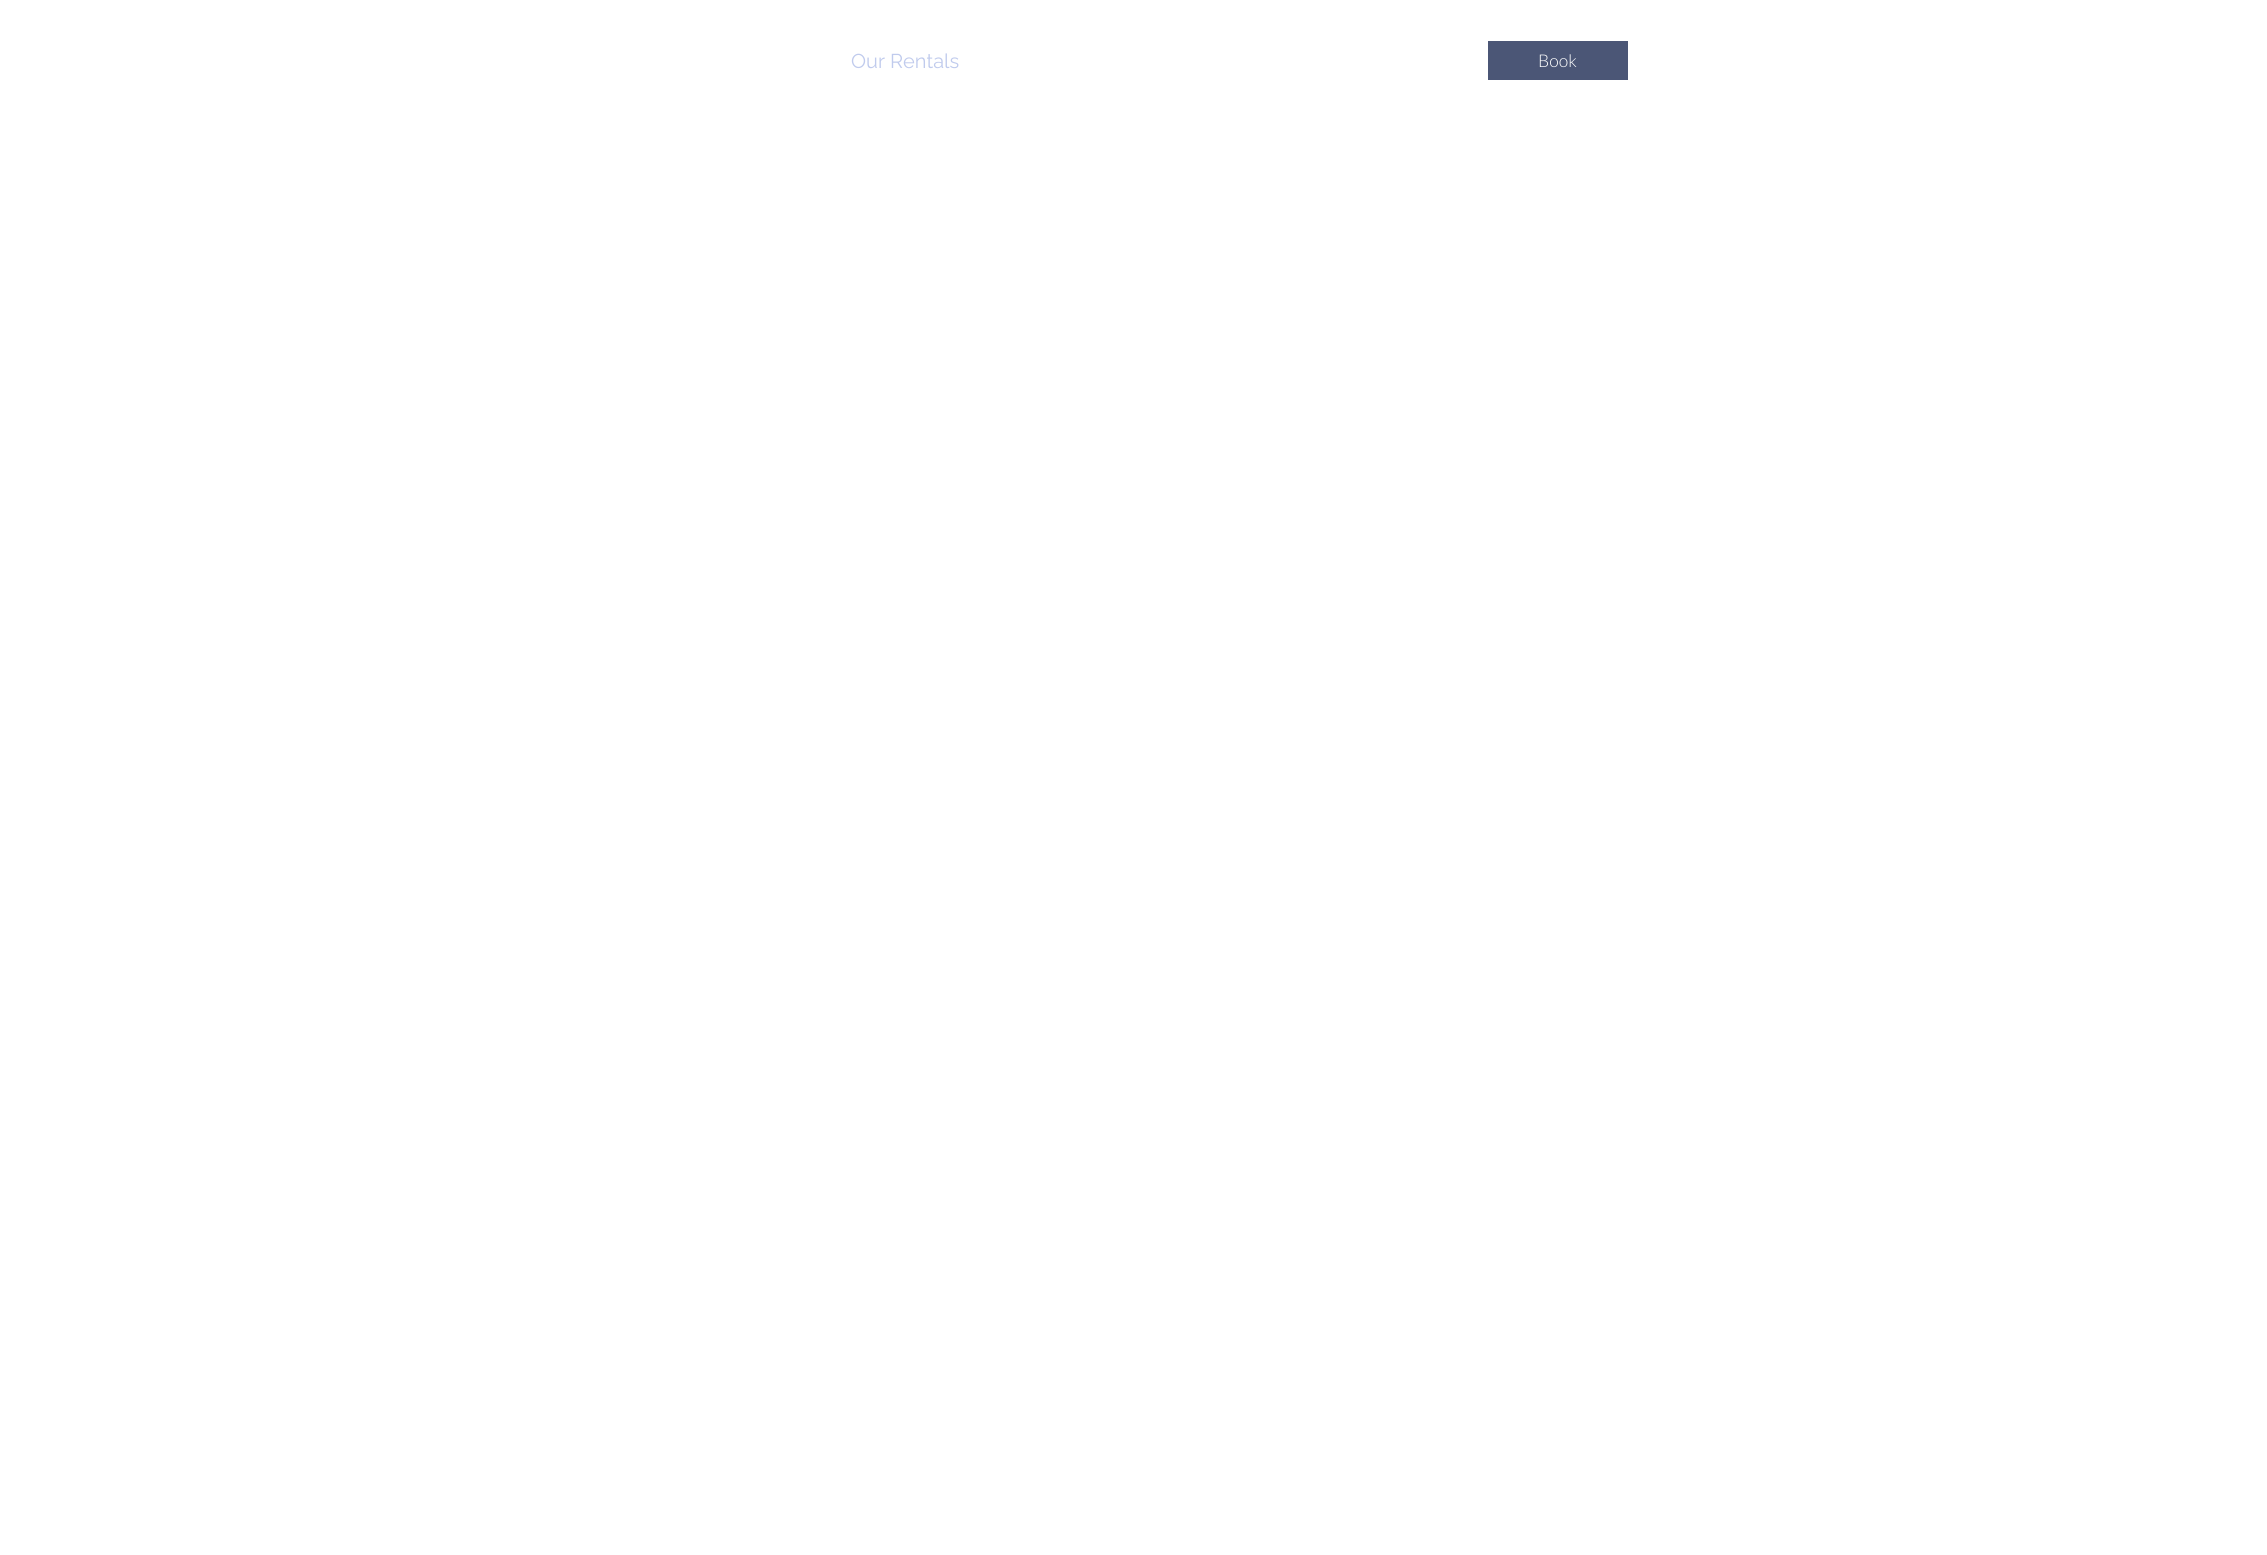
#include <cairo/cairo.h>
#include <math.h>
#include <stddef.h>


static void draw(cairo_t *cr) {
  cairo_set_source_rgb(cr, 1, 1, 1);
  cairo_paint(cr);
  cairo_set_source_rgb(cr, 75 / 255.0, 86 / 255.0, 118 / 255.0);
  cairo_rectangle(cr, 1488, 41, 140, 39);
  cairo_fill(cr);
  cairo_select_font_face(cr, "Raleway", CAIRO_FONT_SLANT_NORMAL, CAIRO_FONT_WEIGHT_NORMAL);
  cairo_set_font_size(cr, 20);
  cairo_set_source_rgb(cr, 192 / 255.0, 203 / 255.0, 237 / 255.0);
  cairo_move_to(cr, 851, 68);
  cairo_show_text(cr, "Our Rentals");
  cairo_select_font_face(cr, "Lato Light", CAIRO_FONT_SLANT_NORMAL, CAIRO_FONT_WEIGHT_NORMAL);
  cairo_set_font_size(cr, 17.5);
  cairo_set_source_rgb(cr, 1, 1, 1);
  cairo_move_to(cr, 1538, 67);
  cairo_show_text(cr, "Book");
}

int main(void) {
  cairo_surface_t *surface = cairo_image_surface_create(CAIRO_FORMAT_RGB24, 2267, 1555);
  cairo_t *cr = cairo_create(surface);
  cairo_font_options_t *options = cairo_font_options_create();
  cairo_font_options_set_hint_metrics(options, CAIRO_HINT_METRICS_OFF);
  cairo_font_options_set_hint_style(options, CAIRO_HINT_STYLE_NONE);
  cairo_set_font_options(cr, options);
  cairo_set_miter_limit(cr, 4);
  draw(cr);
  cairo_surface_write_to_png(surface, "out.png");
  cairo_font_options_destroy(options);
  cairo_destroy(cr);
  cairo_surface_destroy(surface);
  return 0;
}
